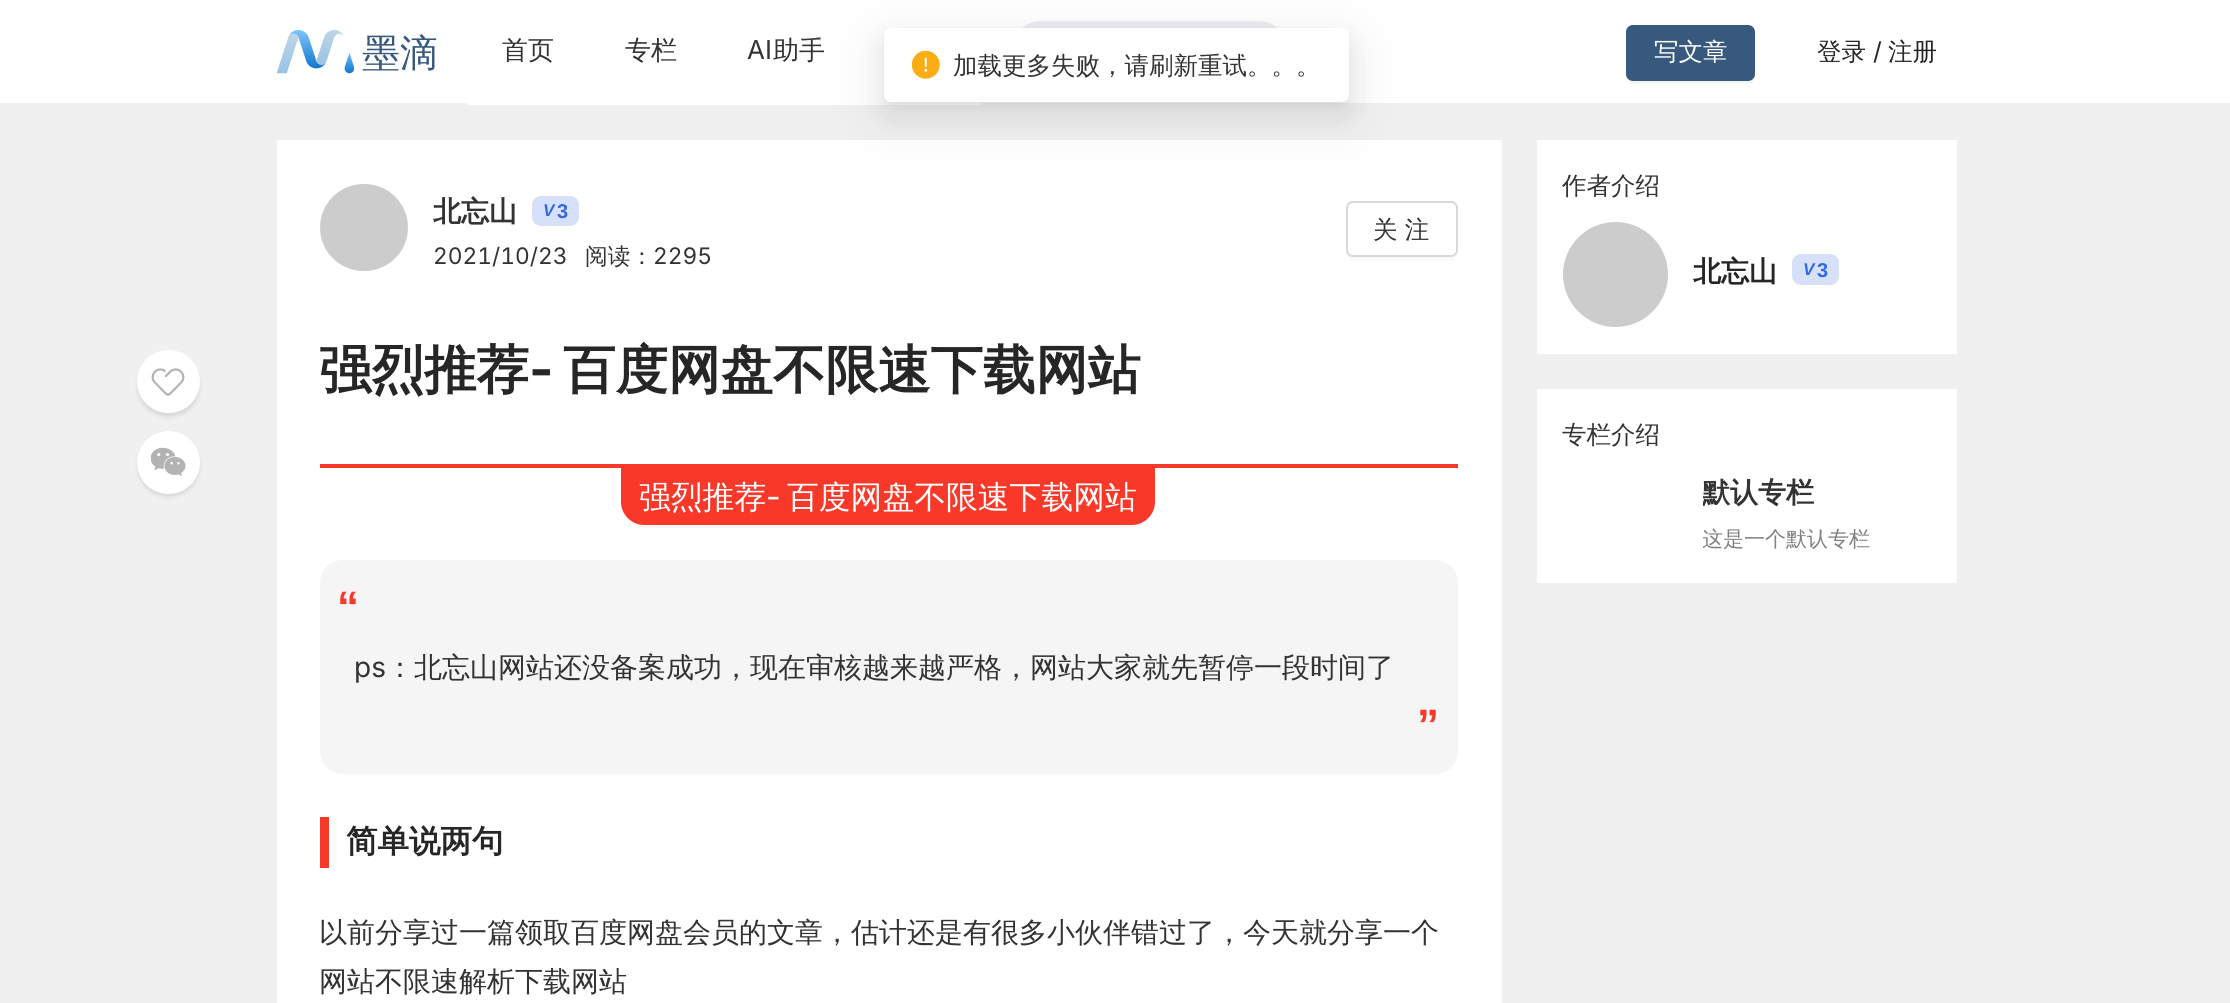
#include <cairo/cairo.h>
#include <math.h>
#include <stddef.h>


static void rounded_rect(cairo_t *cr, double x, double y, double w, double h, double r) {
  cairo_new_sub_path(cr);
  cairo_arc(cr, x + w - r, y + h - r, r, 0, M_PI / 2);
  cairo_arc(cr, x + r, y + h - r, r, M_PI / 2, M_PI);
  cairo_arc(cr, x + r, y + r, r, M_PI, 1.5 * M_PI);
  cairo_arc(cr, x + w - r, y + r, r, 1.5 * M_PI, 2 * M_PI);
  cairo_close_path(cr);
}

static void draw_shadow(cairo_t *cr, double x, double y, double w, double h, double r, double blur, double alpha) {
  cairo_push_group_with_content(cr, CAIRO_CONTENT_ALPHA);
  cairo_set_operator(cr, CAIRO_OPERATOR_SOURCE);
  for (int i = 15; i >= -15 && fmin(w, h) + blur * i / 3 > 0; i -= 2) {
    double e = blur * i / 6;
    cairo_set_source_rgba(cr, 0, 0, 0, alpha * erfc((i - 1) / 8.5) / 2);
    rounded_rect(cr, x - e, y - e, w + 2 * e, h + 2 * e, fmax(0, fmin(r + e + blur * .6, fmin(w, h) / 2 + e)));
    cairo_fill(cr);
  }
  cairo_pattern_t *soft = cairo_pop_group(cr);
  cairo_mask(cr, soft);
  cairo_pattern_destroy(soft);
}

static void draw_image(cairo_t *cr, const char *path, double x, double y, double w, double h) {
  cairo_surface_t *image = cairo_image_surface_create_from_png(path);
  cairo_save(cr);
  cairo_set_source_surface(cr, image, x, y);
  cairo_rectangle(cr, x, y, w, h);
  cairo_fill(cr);
  cairo_restore(cr);
  cairo_surface_destroy(image);
}

static void draw(cairo_t *cr) {
  cairo_set_source_rgb(cr, 1, 1, 1);
  cairo_paint(cr);
  cairo_set_source_rgb(cr, 241 / 255.0, 241 / 255.0, 241 / 255.0);
  cairo_rectangle(cr, 0, 103, 2230, 2);
  cairo_fill(cr);
  draw_image(cr, "images/1.png", 277, 30, 77, 44);
  cairo_set_source_rgb(cr, 1, 1, 1);
  cairo_rectangle(cr, 467, 103, 515, 2);
  cairo_fill(cr);
  cairo_set_source_rgb(cr, 235 / 255.0, 237 / 255.0, 240 / 255.0);
  rounded_rect(cr, 1010, 21, 280, 63, 31.5);
  cairo_fill(cr);
  cairo_set_source_rgb(cr, 244 / 255.0, 244 / 255.0, 244 / 255.0);
  cairo_new_path(cr);
  cairo_move_to(cr, 1626, 75);
  cairo_line_to(cr, 1626, 77);
  cairo_curve_to(cr, 1626, 81, 1629, 84, 1633, 84);
  cairo_line_to(cr, 1748, 84);
  cairo_curve_to(cr, 1752, 84, 1755, 81, 1755, 77);
  cairo_line_to(cr, 1755, 75);
  cairo_curve_to(cr, 1754, 78, 1751, 80, 1748, 80);
  cairo_line_to(cr, 1633, 80);
  cairo_curve_to(cr, 1630, 80, 1627, 78, 1626, 75);
  cairo_close_path(cr);
  cairo_fill(cr);
  cairo_set_source_rgb(cr, 55 / 255.0, 89 / 255.0, 125 / 255.0);
  rounded_rect(cr, 1627, 26, 127, 54, 6);
  cairo_fill_preserve(cr);
  cairo_stroke(cr);
  cairo_set_source_rgb(cr, 240 / 255.0, 240 / 255.0, 240 / 255.0);
  cairo_rectangle(cr, 0, 105, 2230, 898);
  cairo_fill(cr);
  cairo_set_source_rgb(cr, 0, 0, 0);
  draw_shadow(cr, 137, 354, 63, 63, 31.5, 2, 0.1);
  cairo_set_source_rgb(cr, 1, 1, 1);
  cairo_arc(cr, 168.5, 381.5, 31.5, 0, 2 * M_PI);
  cairo_fill(cr);
  draw_image(cr, "images/2.png", 151, 368, 34, 28);
  cairo_set_source_rgb(cr, 0, 0, 0);
  draw_shadow(cr, 137, 434, 63, 63, 31.5, 2, 0.1);
  cairo_set_source_rgb(cr, 1, 1, 1);
  cairo_arc(cr, 168.5, 462.5, 31.5, 0, 2 * M_PI);
  cairo_fill(cr);
  draw_image(cr, "images/3.png", 151, 447, 35, 29);
  cairo_rectangle(cr, 277, 140, 1225, 863);
  cairo_fill(cr);
  cairo_set_source_rgb(cr, 204 / 255.0, 204 / 255.0, 204 / 255.0);
  rounded_rect(cr, 320, 184, 88, 87, 43.5);
  cairo_fill(cr);
  cairo_set_source_rgb(cr, 214 / 255.0, 225 / 255.0, 249 / 255.0);
  rounded_rect(cr, 532, 196, 47, 30, 9);
  cairo_fill(cr);
  cairo_set_source_rgb(cr, 251 / 255.0, 251 / 255.0, 251 / 255.0);
  cairo_new_path(cr);
  cairo_move_to(cr, 1346, 252);
  cairo_line_to(cr, 1346, 254);
  cairo_curve_to(cr, 1346, 258, 1349, 261, 1353, 261);
  cairo_line_to(cr, 1451, 261);
  cairo_curve_to(cr, 1455, 261, 1458, 258, 1458, 254);
  cairo_line_to(cr, 1458, 210);
  cairo_line_to(cr, 1458, 250);
  cairo_curve_to(cr, 1458, 254, 1455, 257, 1451, 257);
  cairo_line_to(cr, 1353, 257);
  cairo_curve_to(cr, 1350, 257, 1347, 255, 1346, 252);
  cairo_close_path(cr);
  cairo_fill(cr);
  rounded_rect(cr, 1347, 202, 110, 54, 6);
  cairo_set_source_rgb(cr, 217 / 255.0, 217 / 255.0, 217 / 255.0);
  cairo_stroke(cr);
  cairo_set_source_rgb(cr, 248 / 255.0, 57 / 255.0, 41 / 255.0);
  cairo_rectangle(cr, 320, 464, 1138, 4);
  cairo_fill(cr);
  cairo_new_path(cr);
  cairo_move_to(cr, 621, 467);
  cairo_line_to(cr, 1155, 467);
  cairo_line_to(cr, 1155, 502);
  cairo_curve_to(cr, 1155, 514.5, 1144.5, 525, 1132, 525);
  cairo_line_to(cr, 644, 525);
  cairo_curve_to(cr, 631.5, 525, 621, 514.5, 621, 502);
  cairo_close_path(cr);
  cairo_fill(cr);
  cairo_set_source_rgb(cr, 245 / 255.0, 245 / 255.0, 245 / 255.0);
  rounded_rect(cr, 320, 560, 1138, 214, 23);
  cairo_fill(cr);
  cairo_set_source_rgb(cr, 248 / 255.0, 57 / 255.0, 41 / 255.0);
  cairo_rectangle(cr, 320, 817, 9, 51);
  cairo_fill(cr);
  cairo_set_source_rgb(cr, 1, 1, 1);
  cairo_rectangle(cr, 1537, 140, 420, 214);
  cairo_fill(cr);
  cairo_set_source_rgb(cr, 204 / 255.0, 204 / 255.0, 204 / 255.0);
  cairo_arc(cr, 1615.5, 274.5, 52.5, 0, 2 * M_PI);
  cairo_fill(cr);
  cairo_set_source_rgb(cr, 214 / 255.0, 225 / 255.0, 249 / 255.0);
  rounded_rect(cr, 1792, 254, 47, 31, 9);
  cairo_fill(cr);
  cairo_set_source_rgb(cr, 1, 1, 1);
  cairo_rectangle(cr, 1537, 389, 420, 194);
  cairo_fill(cr);
  cairo_set_source_rgb(cr, 0, 0, 0);
  draw_shadow(cr, 870, 30, 493, 101, 21, 24.5, 0.05);
  draw_shadow(cr, 884, 39, 465, 73, 7, 14, 0.08);
  draw_shadow(cr, 891, 40, 451, 60, 0, 5, 0.12);
  cairo_set_source_rgb(cr, 1, 1, 1);
  rounded_rect(cr, 884, 28, 465, 74, 7);
  cairo_fill(cr);
  draw_image(cr, "images/4.png", 912, 51, 28, 28);
  cairo_select_font_face(cr, "WenQuanYi Zen Hei Medium", CAIRO_FONT_SLANT_NORMAL, CAIRO_FONT_WEIGHT_NORMAL);
  cairo_set_font_size(cr, 38);
  cairo_set_source_rgb(cr, 55 / 255.0, 89 / 255.0, 125 / 255.0);
  cairo_move_to(cr, 362, 66);
  cairo_show_text(cr, "墨滴");
  cairo_set_font_size(cr, 26);
  cairo_set_source_rgb(cr, 51 / 255.0, 51 / 255.0, 51 / 255.0);
  cairo_move_to(cr, 502, 59);
  cairo_show_text(cr, "首页");
  cairo_move_to(cr, 625, 59);
  cairo_show_text(cr, "专栏");
  cairo_select_font_face(cr, "Inter", CAIRO_FONT_SLANT_NORMAL, CAIRO_FONT_WEIGHT_NORMAL);
  cairo_move_to(cr, 747, 59);
  cairo_show_text(cr, "AI");
  cairo_select_font_face(cr, "WenQuanYi Zen Hei Medium", CAIRO_FONT_SLANT_NORMAL, CAIRO_FONT_WEIGHT_NORMAL);
  cairo_move_to(cr, 773, 59);
  cairo_show_text(cr, "助手");
  cairo_set_font_size(cr, 24.5);
  cairo_set_source_rgb(cr, 1, 1, 1);
  cairo_move_to(cr, 1654, 60);
  cairo_show_text(cr, "写文章");
  cairo_set_source_rgb(cr, 38 / 255.0, 38 / 255.0, 38 / 255.0);
  cairo_move_to(cr, 1817, 60);
  cairo_show_text(cr, "登录");
  cairo_select_font_face(cr, "Inter", CAIRO_FONT_SLANT_NORMAL, CAIRO_FONT_WEIGHT_NORMAL);
  cairo_move_to(cr, 1873, 60);
  cairo_show_text(cr, "/");
  cairo_select_font_face(cr, "WenQuanYi Zen Hei Medium", CAIRO_FONT_SLANT_NORMAL, CAIRO_FONT_WEIGHT_NORMAL);
  cairo_move_to(cr, 1888, 60);
  cairo_show_text(cr, "注册");
  cairo_select_font_face(cr, "WenQuanYi Zen Hei", CAIRO_FONT_SLANT_NORMAL, CAIRO_FONT_WEIGHT_BOLD);
  cairo_set_font_size(cr, 28);
  cairo_set_source_rgb(cr, 51 / 255.0, 51 / 255.0, 51 / 255.0);
  cairo_move_to(cr, 433, 221);
  cairo_show_text(cr, "北忘山");
  cairo_select_font_face(cr, "Liberation Sans", CAIRO_FONT_SLANT_ITALIC, CAIRO_FONT_WEIGHT_BOLD);
  cairo_set_font_size(cr, 17);
  cairo_set_source_rgb(cr, 51 / 255.0, 104 / 255.0, 225 / 255.0);
  cairo_move_to(cr, 543, 216);
  cairo_show_text(cr, "V");
  cairo_select_font_face(cr, "Liberation Sans", CAIRO_FONT_SLANT_NORMAL, CAIRO_FONT_WEIGHT_BOLD);
  cairo_set_font_size(cr, 20);
  cairo_move_to(cr, 557, 218);
  cairo_show_text(cr, "3");
  cairo_select_font_face(cr, "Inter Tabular", CAIRO_FONT_SLANT_NORMAL, CAIRO_FONT_WEIGHT_NORMAL);
  cairo_set_font_size(cr, 22.75);
  cairo_set_source_rgb(cr, 51 / 255.0, 51 / 255.0, 51 / 255.0);
  cairo_move_to(cr, 433, 264);
  cairo_show_text(cr, "2021/10/23");
  cairo_select_font_face(cr, "WenQuanYi Zen Hei Medium", CAIRO_FONT_SLANT_NORMAL, CAIRO_FONT_WEIGHT_NORMAL);
  cairo_move_to(cr, 585, 264);
  cairo_show_text(cr, "阅读：");
  cairo_select_font_face(cr, "Inter Tabular", CAIRO_FONT_SLANT_NORMAL, CAIRO_FONT_WEIGHT_NORMAL);
  cairo_move_to(cr, 653, 264);
  cairo_show_text(cr, "2295");
  cairo_select_font_face(cr, "WenQuanYi Zen Hei Medium", CAIRO_FONT_SLANT_NORMAL, CAIRO_FONT_WEIGHT_NORMAL);
  cairo_set_font_size(cr, 24.5);
  cairo_move_to(cr, 1373, 238);
  cairo_show_text(cr, "关 注");
  cairo_select_font_face(cr, "WenQuanYi Zen Hei", CAIRO_FONT_SLANT_NORMAL, CAIRO_FONT_WEIGHT_BOLD);
  cairo_set_font_size(cr, 52.5);
  cairo_set_source_rgb(cr, 38 / 255.0, 38 / 255.0, 38 / 255.0);
  cairo_move_to(cr, 319, 388);
  cairo_show_text(cr, "强烈推荐");
  cairo_select_font_face(cr, "Inter", CAIRO_FONT_SLANT_NORMAL, CAIRO_FONT_WEIGHT_BOLD);
  cairo_move_to(cr, 529, 388);
  cairo_show_text(cr, "-");
  cairo_select_font_face(cr, "WenQuanYi Zen Hei", CAIRO_FONT_SLANT_NORMAL, CAIRO_FONT_WEIGHT_BOLD);
  cairo_move_to(cr, 563, 388);
  cairo_show_text(cr, "百度网盘不限速下载网站");
  cairo_select_font_face(cr, "WenQuanYi Zen Hei Medium", CAIRO_FONT_SLANT_NORMAL, CAIRO_FONT_WEIGHT_NORMAL);
  cairo_set_font_size(cr, 31.8);
  cairo_set_source_rgb(cr, 1, 1, 1);
  cairo_move_to(cr, 639, 508);
  cairo_show_text(cr, "强烈推荐");
  cairo_select_font_face(cr, "Inter", CAIRO_FONT_SLANT_NORMAL, CAIRO_FONT_WEIGHT_NORMAL);
  cairo_move_to(cr, 766, 508);
  cairo_show_text(cr, "-");
  cairo_select_font_face(cr, "WenQuanYi Zen Hei Medium", CAIRO_FONT_SLANT_NORMAL, CAIRO_FONT_WEIGHT_NORMAL);
  cairo_move_to(cr, 787, 508);
  cairo_show_text(cr, "百度网盘不限速下载网站");
  cairo_select_font_face(cr, "Liberation Sans", CAIRO_FONT_SLANT_NORMAL, CAIRO_FONT_WEIGHT_BOLD);
  cairo_set_font_size(cr, 44);
  cairo_set_source_rgb(cr, 248 / 255.0, 57 / 255.0, 41 / 255.0);
  cairo_move_to(cr, 337, 622);
  cairo_show_text(cr, "“");
  cairo_select_font_face(cr, "Inter", CAIRO_FONT_SLANT_NORMAL, CAIRO_FONT_WEIGHT_NORMAL);
  cairo_set_font_size(cr, 28);
  cairo_set_source_rgb(cr, 51 / 255.0, 51 / 255.0, 51 / 255.0);
  cairo_move_to(cr, 354, 677);
  cairo_show_text(cr, "ps");
  cairo_select_font_face(cr, "WenQuanYi Zen Hei Medium", CAIRO_FONT_SLANT_NORMAL, CAIRO_FONT_WEIGHT_NORMAL);
  cairo_move_to(cr, 386, 677);
  cairo_show_text(cr, "：北忘山网站还没备案成功，现在审核越来越严格，网站大家就先暂停一段时间了");
  cairo_select_font_face(cr, "Liberation Sans", CAIRO_FONT_SLANT_NORMAL, CAIRO_FONT_WEIGHT_BOLD);
  cairo_set_font_size(cr, 44);
  cairo_set_source_rgb(cr, 248 / 255.0, 57 / 255.0, 41 / 255.0);
  cairo_move_to(cr, 1417, 740);
  cairo_show_text(cr, "”");
  cairo_select_font_face(cr, "WenQuanYi Zen Hei", CAIRO_FONT_SLANT_NORMAL, CAIRO_FONT_WEIGHT_BOLD);
  cairo_set_font_size(cr, 31.5);
  cairo_set_source_rgb(cr, 38 / 255.0, 38 / 255.0, 38 / 255.0);
  cairo_move_to(cr, 346, 852);
  cairo_show_text(cr, "简单说两句");
  cairo_select_font_face(cr, "WenQuanYi Zen Hei Medium", CAIRO_FONT_SLANT_NORMAL, CAIRO_FONT_WEIGHT_NORMAL);
  cairo_set_font_size(cr, 28);
  cairo_set_source_rgb(cr, 51 / 255.0, 51 / 255.0, 51 / 255.0);
  cairo_move_to(cr, 319, 942);
  cairo_show_text(cr, "以前分享过一篇领取百度网盘会员的文章，估计还是有很多小伙伴错过了，今天就分享一个");
  cairo_move_to(cr, 319, 991);
  cairo_show_text(cr, "网站不限速解析下载网站");
  cairo_set_font_size(cr, 24.5);
  cairo_move_to(cr, 1562, 194);
  cairo_show_text(cr, "作者介绍");
  cairo_select_font_face(cr, "WenQuanYi Zen Hei", CAIRO_FONT_SLANT_NORMAL, CAIRO_FONT_WEIGHT_BOLD);
  cairo_set_font_size(cr, 28);
  cairo_set_source_rgb(cr, 38 / 255.0, 38 / 255.0, 38 / 255.0);
  cairo_move_to(cr, 1693, 281);
  cairo_show_text(cr, "北忘山");
  cairo_select_font_face(cr, "Liberation Sans", CAIRO_FONT_SLANT_ITALIC, CAIRO_FONT_WEIGHT_BOLD);
  cairo_set_font_size(cr, 17);
  cairo_set_source_rgb(cr, 51 / 255.0, 104 / 255.0, 225 / 255.0);
  cairo_move_to(cr, 1803, 275);
  cairo_show_text(cr, "V");
  cairo_select_font_face(cr, "Liberation Sans", CAIRO_FONT_SLANT_NORMAL, CAIRO_FONT_WEIGHT_BOLD);
  cairo_set_font_size(cr, 20);
  cairo_move_to(cr, 1817, 277);
  cairo_show_text(cr, "3");
  cairo_select_font_face(cr, "WenQuanYi Zen Hei Medium", CAIRO_FONT_SLANT_NORMAL, CAIRO_FONT_WEIGHT_NORMAL);
  cairo_set_font_size(cr, 24.5);
  cairo_set_source_rgb(cr, 51 / 255.0, 51 / 255.0, 51 / 255.0);
  cairo_move_to(cr, 1562, 443);
  cairo_show_text(cr, "专栏介绍");
  cairo_save(cr);
  cairo_rectangle(cr, 1703, 471, 227, 44);
  cairo_clip(cr);
  cairo_select_font_face(cr, "WenQuanYi Zen Hei", CAIRO_FONT_SLANT_NORMAL, CAIRO_FONT_WEIGHT_BOLD);
  cairo_set_font_size(cr, 28);
  cairo_move_to(cr, 1702, 502);
  cairo_show_text(cr, "默认专栏");
  cairo_restore(cr);
  cairo_save(cr);
  cairo_rectangle(cr, 1703, 515, 227, 42);
  cairo_clip(cr);
  cairo_set_font_size(cr, 21);
  cairo_set_source_rgb(cr, 128 / 255.0, 128 / 255.0, 128 / 255.0);
  cairo_move_to(cr, 1702, 546);
  cairo_show_text(cr, "这是一个默认专栏");
  cairo_restore(cr);
  cairo_move_to(cr, 953, 74);
  cairo_show_text(cr, "加载更多失败，请刷新重试。。。");
}

int main(void) {
  cairo_surface_t *surface = cairo_image_surface_create(CAIRO_FORMAT_RGB24, 2230, 1003);
  cairo_t *cr = cairo_create(surface);
  cairo_font_options_t *options = cairo_font_options_create();
  cairo_font_options_set_hint_metrics(options, CAIRO_HINT_METRICS_OFF);
  cairo_font_options_set_hint_style(options, CAIRO_HINT_STYLE_NONE);
  cairo_set_font_options(cr, options);
  cairo_set_miter_limit(cr, 4);
  draw(cr);
  cairo_surface_write_to_png(surface, "out.png");
  cairo_font_options_destroy(options);
  cairo_destroy(cr);
  cairo_surface_destroy(surface);
  return 0;
}
